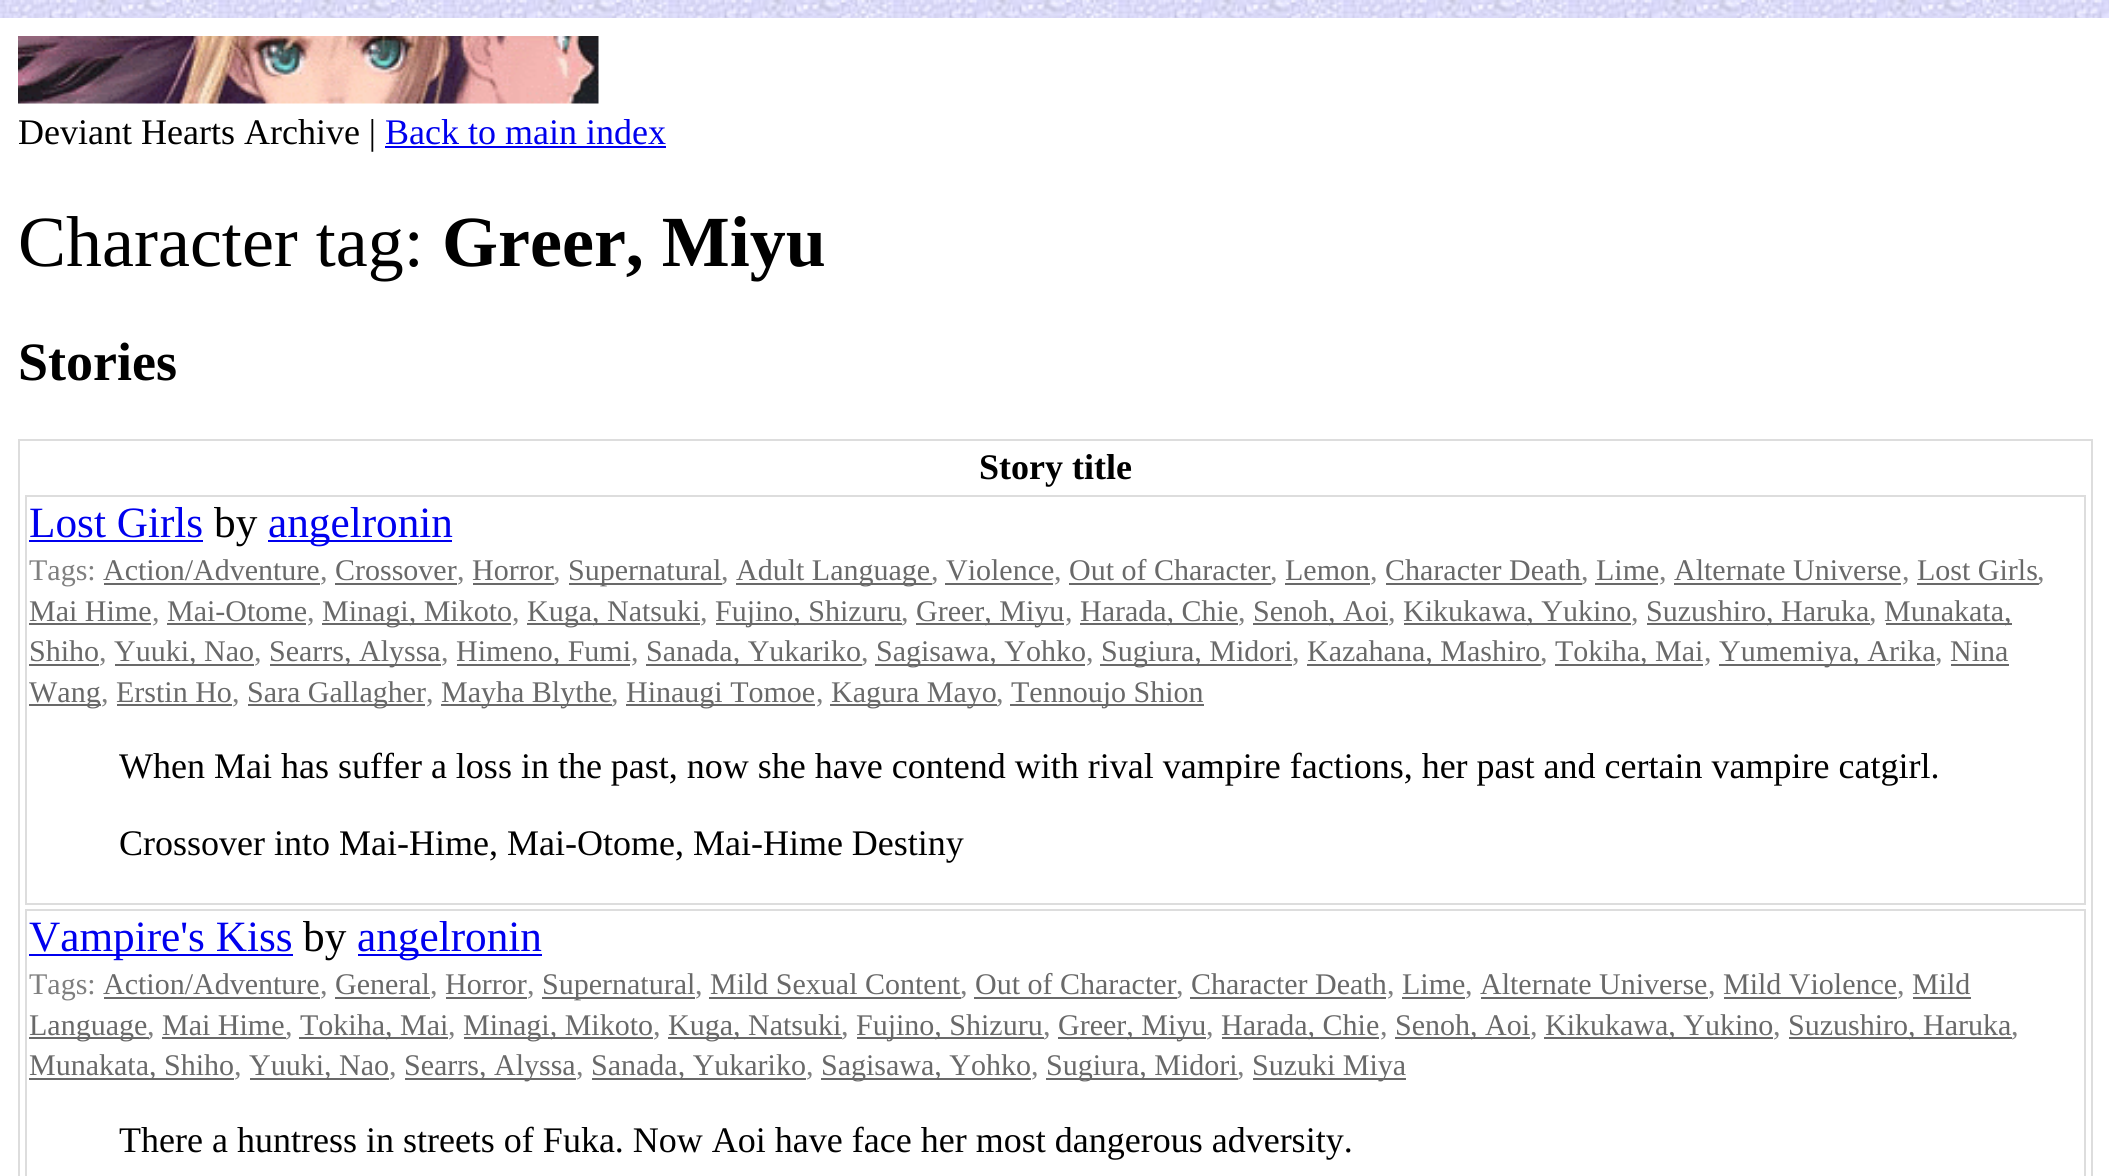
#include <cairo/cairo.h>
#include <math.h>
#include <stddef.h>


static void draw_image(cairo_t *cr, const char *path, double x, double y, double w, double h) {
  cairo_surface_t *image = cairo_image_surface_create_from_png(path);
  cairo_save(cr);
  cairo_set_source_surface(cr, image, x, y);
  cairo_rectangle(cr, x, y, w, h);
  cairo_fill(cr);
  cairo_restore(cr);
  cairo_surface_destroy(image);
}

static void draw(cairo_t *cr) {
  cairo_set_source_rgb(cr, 1, 1, 1);
  cairo_paint(cr);
  draw_image(cr, "images/1.png", 0, 0, 2109, 18);
  draw_image(cr, "images/2.png", 18, 36, 581, 68);
  cairo_set_source_rgb(cr, 0, 0, 238 / 255.0);
  cairo_rectangle(cr, 385, 146, 281, 2);
  cairo_fill(cr);
  cairo_rectangle(cr, 19, 440, 2073, 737);
  cairo_set_source_rgb(cr, 221 / 255.0, 221 / 255.0, 221 / 255.0);
  cairo_stroke(cr);
  cairo_rectangle(cr, 26, 496, 2059, 408);
  cairo_stroke(cr);
  cairo_set_source_rgb(cr, 0, 0, 238 / 255.0);
  cairo_rectangle(cr, 29, 540, 174, 2);
  cairo_fill(cr);
  cairo_rectangle(cr, 268, 540, 184, 2);
  cairo_fill(cr);
  cairo_set_source_rgb(cr, 105 / 255.0, 105 / 255.0, 105 / 255.0);
  cairo_rectangle(cr, 104, 583, 216, 2);
  cairo_fill(cr);
  cairo_rectangle(cr, 335, 583, 122, 2);
  cairo_fill(cr);
  cairo_rectangle(cr, 473, 583, 81, 2);
  cairo_fill(cr);
  cairo_rectangle(cr, 569, 583, 153, 2);
  cairo_fill(cr);
  cairo_rectangle(cr, 736, 583, 196, 2);
  cairo_fill(cr);
  cairo_rectangle(cr, 945, 583, 108, 2);
  cairo_fill(cr);
  cairo_rectangle(cr, 1069, 583, 202, 2);
  cairo_fill(cr);
  cairo_rectangle(cr, 1285, 583, 85, 2);
  cairo_fill(cr);
  cairo_rectangle(cr, 1386, 583, 196, 2);
  cairo_fill(cr);
  cairo_rectangle(cr, 1595, 583, 63, 2);
  cairo_fill(cr);
  cairo_rectangle(cr, 1674, 583, 227, 2);
  cairo_fill(cr);
  cairo_rectangle(cr, 1917, 583, 122, 2);
  cairo_fill(cr);
  cairo_rectangle(cr, 29, 623, 122, 2);
  cairo_fill(cr);
  cairo_rectangle(cr, 167, 623, 139, 2);
  cairo_fill(cr);
  cairo_rectangle(cr, 322, 623, 189, 2);
  cairo_fill(cr);
  cairo_rectangle(cr, 527, 623, 173, 2);
  cairo_fill(cr);
  cairo_rectangle(cr, 716, 623, 186, 2);
  cairo_fill(cr);
  cairo_rectangle(cr, 916, 623, 148, 2);
  cairo_fill(cr);
  cairo_rectangle(cr, 1080, 623, 158, 2);
  cairo_fill(cr);
  cairo_rectangle(cr, 1253, 623, 135, 2);
  cairo_fill(cr);
  cairo_rectangle(cr, 1404, 623, 227, 2);
  cairo_fill(cr);
  cairo_rectangle(cr, 1647, 623, 223, 2);
  cairo_fill(cr);
  cairo_rectangle(cr, 1886, 623, 126, 2);
  cairo_fill(cr);
  cairo_rectangle(cr, 29, 664, 70, 2);
  cairo_fill(cr);
  cairo_rectangle(cr, 115, 664, 139, 2);
  cairo_fill(cr);
  cairo_rectangle(cr, 270, 664, 171, 2);
  cairo_fill(cr);
  cairo_rectangle(cr, 457, 664, 173, 2);
  cairo_fill(cr);
  cairo_rectangle(cr, 646, 664, 216, 2);
  cairo_fill(cr);
  cairo_rectangle(cr, 875, 664, 210, 2);
  cairo_fill(cr);
  cairo_rectangle(cr, 1100, 664, 192, 2);
  cairo_fill(cr);
  cairo_rectangle(cr, 1307, 664, 234, 2);
  cairo_fill(cr);
  cairo_rectangle(cr, 1555, 664, 148, 2);
  cairo_fill(cr);
  cairo_rectangle(cr, 1719, 664, 216, 2);
  cairo_fill(cr);
  cairo_rectangle(cr, 1951, 664, 58, 2);
  cairo_fill(cr);
  cairo_rectangle(cr, 29, 704, 72, 2);
  cairo_fill(cr);
  cairo_rectangle(cr, 117, 704, 115, 2);
  cairo_fill(cr);
  cairo_rectangle(cr, 248, 704, 177, 2);
  cairo_fill(cr);
  cairo_rectangle(cr, 441, 704, 171, 2);
  cairo_fill(cr);
  cairo_rectangle(cr, 626, 704, 189, 2);
  cairo_fill(cr);
  cairo_rectangle(cr, 830, 704, 167, 2);
  cairo_fill(cr);
  cairo_rectangle(cr, 1010, 704, 194, 2);
  cairo_fill(cr);
  cairo_rectangle(cr, 26, 910, 2059, 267);
  cairo_set_source_rgb(cr, 221 / 255.0, 221 / 255.0, 221 / 255.0);
  cairo_stroke(cr);
  cairo_set_source_rgb(cr, 0, 0, 238 / 255.0);
  cairo_rectangle(cr, 29, 954, 264, 2);
  cairo_fill(cr);
  cairo_rectangle(cr, 358, 954, 184, 2);
  cairo_fill(cr);
  cairo_set_source_rgb(cr, 105 / 255.0, 105 / 255.0, 105 / 255.0);
  cairo_rectangle(cr, 104, 997, 216, 2);
  cairo_fill(cr);
  cairo_rectangle(cr, 335, 997, 95, 2);
  cairo_fill(cr);
  cairo_rectangle(cr, 446, 997, 81, 2);
  cairo_fill(cr);
  cairo_rectangle(cr, 542, 997, 153, 2);
  cairo_fill(cr);
  cairo_rectangle(cr, 709, 997, 252, 2);
  cairo_fill(cr);
  cairo_rectangle(cr, 974, 997, 203, 2);
  cairo_fill(cr);
  cairo_rectangle(cr, 1190, 997, 196, 2);
  cairo_fill(cr);
  cairo_rectangle(cr, 1402, 997, 63, 2);
  cairo_fill(cr);
  cairo_rectangle(cr, 1481, 997, 227, 2);
  cairo_fill(cr);
  cairo_rectangle(cr, 1724, 997, 173, 2);
  cairo_fill(cr);
  cairo_rectangle(cr, 1913, 997, 58, 2);
  cairo_fill(cr);
  cairo_rectangle(cr, 29, 1037, 120, 2);
  cairo_fill(cr);
  cairo_rectangle(cr, 162, 1037, 124, 2);
  cairo_fill(cr);
  cairo_rectangle(cr, 299, 1037, 149, 2);
  cairo_fill(cr);
  cairo_rectangle(cr, 464, 1037, 189, 2);
  cairo_fill(cr);
  cairo_rectangle(cr, 668, 1037, 174, 2);
  cairo_fill(cr);
  cairo_rectangle(cr, 857, 1037, 187, 2);
  cairo_fill(cr);
  cairo_rectangle(cr, 1058, 1037, 148, 2);
  cairo_fill(cr);
  cairo_rectangle(cr, 1222, 1037, 157, 2);
  cairo_fill(cr);
  cairo_rectangle(cr, 1395, 1037, 135, 2);
  cairo_fill(cr);
  cairo_rectangle(cr, 1544, 1037, 229, 2);
  cairo_fill(cr);
  cairo_rectangle(cr, 1789, 1037, 223, 2);
  cairo_fill(cr);
  cairo_rectangle(cr, 29, 1078, 205, 2);
  cairo_fill(cr);
  cairo_rectangle(cr, 250, 1078, 139, 2);
  cairo_fill(cr);
  cairo_rectangle(cr, 405, 1078, 171, 2);
  cairo_fill(cr);
  cairo_rectangle(cr, 592, 1078, 214, 2);
  cairo_fill(cr);
  cairo_rectangle(cr, 821, 1078, 210, 2);
  cairo_fill(cr);
  cairo_rectangle(cr, 1046, 1078, 192, 2);
  cairo_fill(cr);
  cairo_rectangle(cr, 1253, 1078, 153, 2);
  cairo_fill(cr);
  cairo_select_font_face(cr, "Liberation Serif", CAIRO_FONT_SLANT_NORMAL, CAIRO_FONT_WEIGHT_NORMAL);
  cairo_set_font_size(cr, 36);
  cairo_set_source_rgb(cr, 0, 0, 0);
  cairo_move_to(cr, 18, 144);
  cairo_show_text(cr, "Deviant Hearts Archive |");
  cairo_set_source_rgb(cr, 0, 0, 238 / 255.0);
  cairo_move_to(cr, 385, 144);
  cairo_show_text(cr, "Back to main index");
  cairo_set_font_size(cr, 72);
  cairo_set_source_rgb(cr, 0, 0, 0);
  cairo_move_to(cr, 18, 266);
  cairo_show_text(cr, "Character tag:");
  cairo_select_font_face(cr, "Liberation Serif", CAIRO_FONT_SLANT_NORMAL, CAIRO_FONT_WEIGHT_BOLD);
  cairo_move_to(cr, 442, 266);
  cairo_show_text(cr, "Greer, Miyu");
  cairo_set_font_size(cr, 54);
  cairo_move_to(cr, 18, 380);
  cairo_show_text(cr, "Stories");
  cairo_set_font_size(cr, 36);
  cairo_move_to(cr, 979, 479);
  cairo_show_text(cr, "Story title");
  cairo_select_font_face(cr, "Liberation Serif", CAIRO_FONT_SLANT_NORMAL, CAIRO_FONT_WEIGHT_NORMAL);
  cairo_set_font_size(cr, 43.25);
  cairo_set_source_rgb(cr, 0, 0, 238 / 255.0);
  cairo_move_to(cr, 29, 537);
  cairo_show_text(cr, "Lost Girls");
  cairo_set_source_rgb(cr, 0, 0, 0);
  cairo_move_to(cr, 214, 537);
  cairo_show_text(cr, "by");
  cairo_set_source_rgb(cr, 0, 0, 238 / 255.0);
  cairo_move_to(cr, 268, 537);
  cairo_show_text(cr, "angelronin");
  cairo_set_font_size(cr, 30);
  cairo_set_source_rgb(cr, 128 / 255.0, 128 / 255.0, 128 / 255.0);
  cairo_move_to(cr, 29, 580);
  cairo_show_text(cr, "Tags:");
  cairo_set_source_rgb(cr, 105 / 255.0, 105 / 255.0, 105 / 255.0);
  cairo_move_to(cr, 103, 580);
  cairo_show_text(cr, "Action/Adventure");
  cairo_set_source_rgb(cr, 128 / 255.0, 128 / 255.0, 128 / 255.0);
  cairo_move_to(cr, 320, 580);
  cairo_show_text(cr, ",");
  cairo_set_source_rgb(cr, 105 / 255.0, 105 / 255.0, 105 / 255.0);
  cairo_move_to(cr, 335, 580);
  cairo_show_text(cr, "Crossover");
  cairo_set_source_rgb(cr, 128 / 255.0, 128 / 255.0, 128 / 255.0);
  cairo_move_to(cr, 457, 580);
  cairo_show_text(cr, ",");
  cairo_set_source_rgb(cr, 105 / 255.0, 105 / 255.0, 105 / 255.0);
  cairo_move_to(cr, 472, 580);
  cairo_show_text(cr, "Horror");
  cairo_set_source_rgb(cr, 128 / 255.0, 128 / 255.0, 128 / 255.0);
  cairo_move_to(cr, 553, 580);
  cairo_show_text(cr, ",");
  cairo_set_source_rgb(cr, 105 / 255.0, 105 / 255.0, 105 / 255.0);
  cairo_move_to(cr, 568, 580);
  cairo_show_text(cr, "Supernatural");
  cairo_set_source_rgb(cr, 128 / 255.0, 128 / 255.0, 128 / 255.0);
  cairo_move_to(cr, 721, 580);
  cairo_show_text(cr, ",");
  cairo_set_source_rgb(cr, 105 / 255.0, 105 / 255.0, 105 / 255.0);
  cairo_move_to(cr, 736, 580);
  cairo_show_text(cr, "Adult Language");
  cairo_set_source_rgb(cr, 128 / 255.0, 128 / 255.0, 128 / 255.0);
  cairo_move_to(cr, 931, 580);
  cairo_show_text(cr, ",");
  cairo_set_source_rgb(cr, 105 / 255.0, 105 / 255.0, 105 / 255.0);
  cairo_move_to(cr, 946, 580);
  cairo_show_text(cr, "Violence");
  cairo_set_source_rgb(cr, 128 / 255.0, 128 / 255.0, 128 / 255.0);
  cairo_move_to(cr, 1054, 580);
  cairo_show_text(cr, ",");
  cairo_set_source_rgb(cr, 105 / 255.0, 105 / 255.0, 105 / 255.0);
  cairo_move_to(cr, 1069, 580);
  cairo_show_text(cr, "Out of Character");
  cairo_set_source_rgb(cr, 128 / 255.0, 128 / 255.0, 128 / 255.0);
  cairo_move_to(cr, 1270, 580);
  cairo_show_text(cr, ",");
  cairo_set_source_rgb(cr, 105 / 255.0, 105 / 255.0, 105 / 255.0);
  cairo_move_to(cr, 1285, 580);
  cairo_show_text(cr, "Lemon");
  cairo_set_source_rgb(cr, 128 / 255.0, 128 / 255.0, 128 / 255.0);
  cairo_move_to(cr, 1370, 580);
  cairo_show_text(cr, ",");
  cairo_set_source_rgb(cr, 105 / 255.0, 105 / 255.0, 105 / 255.0);
  cairo_move_to(cr, 1385, 580);
  cairo_show_text(cr, "Character Death");
  cairo_set_source_rgb(cr, 128 / 255.0, 128 / 255.0, 128 / 255.0);
  cairo_move_to(cr, 1581, 580);
  cairo_show_text(cr, ",");
  cairo_set_source_rgb(cr, 105 / 255.0, 105 / 255.0, 105 / 255.0);
  cairo_move_to(cr, 1596, 580);
  cairo_show_text(cr, "Lime");
  cairo_set_source_rgb(cr, 128 / 255.0, 128 / 255.0, 128 / 255.0);
  cairo_move_to(cr, 1659, 580);
  cairo_show_text(cr, ",");
  cairo_set_source_rgb(cr, 105 / 255.0, 105 / 255.0, 105 / 255.0);
  cairo_move_to(cr, 1674, 580);
  cairo_show_text(cr, "Alternate Universe");
  cairo_set_source_rgb(cr, 128 / 255.0, 128 / 255.0, 128 / 255.0);
  cairo_move_to(cr, 1902, 580);
  cairo_show_text(cr, ",");
  cairo_set_source_rgb(cr, 105 / 255.0, 105 / 255.0, 105 / 255.0);
  cairo_move_to(cr, 1917, 580);
  cairo_show_text(cr, "Lost Girls");
  cairo_set_source_rgb(cr, 128 / 255.0, 128 / 255.0, 128 / 255.0);
  cairo_move_to(cr, 2037, 580);
  cairo_show_text(cr, ",");
  cairo_set_source_rgb(cr, 105 / 255.0, 105 / 255.0, 105 / 255.0);
  cairo_move_to(cr, 29, 621);
  cairo_show_text(cr, "Mai Hime");
  cairo_set_source_rgb(cr, 128 / 255.0, 128 / 255.0, 128 / 255.0);
  cairo_move_to(cr, 152, 621);
  cairo_show_text(cr, ",");
  cairo_set_source_rgb(cr, 105 / 255.0, 105 / 255.0, 105 / 255.0);
  cairo_move_to(cr, 167, 621);
  cairo_show_text(cr, "Mai-Otome");
  cairo_set_source_rgb(cr, 128 / 255.0, 128 / 255.0, 128 / 255.0);
  cairo_move_to(cr, 307, 621);
  cairo_show_text(cr, ",");
  cairo_set_source_rgb(cr, 105 / 255.0, 105 / 255.0, 105 / 255.0);
  cairo_move_to(cr, 322, 621);
  cairo_show_text(cr, "Minagi, Mikoto");
  cairo_set_source_rgb(cr, 128 / 255.0, 128 / 255.0, 128 / 255.0);
  cairo_move_to(cr, 512, 621);
  cairo_show_text(cr, ",");
  cairo_set_source_rgb(cr, 105 / 255.0, 105 / 255.0, 105 / 255.0);
  cairo_move_to(cr, 527, 621);
  cairo_show_text(cr, "Kuga, Natsuki");
  cairo_set_source_rgb(cr, 128 / 255.0, 128 / 255.0, 128 / 255.0);
  cairo_move_to(cr, 700, 621);
  cairo_show_text(cr, ",");
  cairo_set_source_rgb(cr, 105 / 255.0, 105 / 255.0, 105 / 255.0);
  cairo_move_to(cr, 715, 621);
  cairo_show_text(cr, "Fujino, Shizuru");
  cairo_set_source_rgb(cr, 128 / 255.0, 128 / 255.0, 128 / 255.0);
  cairo_move_to(cr, 901, 621);
  cairo_show_text(cr, ",");
  cairo_set_source_rgb(cr, 105 / 255.0, 105 / 255.0, 105 / 255.0);
  cairo_move_to(cr, 916, 621);
  cairo_show_text(cr, "Greer, Miyu");
  cairo_set_source_rgb(cr, 128 / 255.0, 128 / 255.0, 128 / 255.0);
  cairo_move_to(cr, 1065, 621);
  cairo_show_text(cr, ",");
  cairo_set_source_rgb(cr, 105 / 255.0, 105 / 255.0, 105 / 255.0);
  cairo_move_to(cr, 1080, 621);
  cairo_show_text(cr, "Harada, Chie");
  cairo_set_source_rgb(cr, 128 / 255.0, 128 / 255.0, 128 / 255.0);
  cairo_move_to(cr, 1238, 621);
  cairo_show_text(cr, ",");
  cairo_set_source_rgb(cr, 105 / 255.0, 105 / 255.0, 105 / 255.0);
  cairo_move_to(cr, 1253, 621);
  cairo_show_text(cr, "Senoh, Aoi");
  cairo_set_source_rgb(cr, 128 / 255.0, 128 / 255.0, 128 / 255.0);
  cairo_move_to(cr, 1388, 621);
  cairo_show_text(cr, ",");
  cairo_set_source_rgb(cr, 105 / 255.0, 105 / 255.0, 105 / 255.0);
  cairo_move_to(cr, 1403, 621);
  cairo_show_text(cr, "Kikukawa, Yukino");
  cairo_set_source_rgb(cr, 128 / 255.0, 128 / 255.0, 128 / 255.0);
  cairo_move_to(cr, 1631, 621);
  cairo_show_text(cr, ",");
  cairo_set_source_rgb(cr, 105 / 255.0, 105 / 255.0, 105 / 255.0);
  cairo_move_to(cr, 1646, 621);
  cairo_show_text(cr, "Suzushiro, Haruka");
  cairo_set_source_rgb(cr, 128 / 255.0, 128 / 255.0, 128 / 255.0);
  cairo_move_to(cr, 1869, 621);
  cairo_show_text(cr, ",");
  cairo_set_source_rgb(cr, 105 / 255.0, 105 / 255.0, 105 / 255.0);
  cairo_move_to(cr, 1884, 621);
  cairo_show_text(cr, "Munakata,");
  cairo_move_to(cr, 29, 661);
  cairo_show_text(cr, "Shiho");
  cairo_set_source_rgb(cr, 128 / 255.0, 128 / 255.0, 128 / 255.0);
  cairo_move_to(cr, 99, 661);
  cairo_show_text(cr, ",");
  cairo_set_source_rgb(cr, 105 / 255.0, 105 / 255.0, 105 / 255.0);
  cairo_move_to(cr, 114, 661);
  cairo_show_text(cr, "Yuuki, Nao");
  cairo_set_source_rgb(cr, 128 / 255.0, 128 / 255.0, 128 / 255.0);
  cairo_move_to(cr, 254, 661);
  cairo_show_text(cr, ",");
  cairo_set_source_rgb(cr, 105 / 255.0, 105 / 255.0, 105 / 255.0);
  cairo_move_to(cr, 269, 661);
  cairo_show_text(cr, "Searrs, Alyssa");
  cairo_set_source_rgb(cr, 128 / 255.0, 128 / 255.0, 128 / 255.0);
  cairo_move_to(cr, 441, 661);
  cairo_show_text(cr, ",");
  cairo_set_source_rgb(cr, 105 / 255.0, 105 / 255.0, 105 / 255.0);
  cairo_move_to(cr, 456, 661);
  cairo_show_text(cr, "Himeno, Fumi");
  cairo_set_source_rgb(cr, 128 / 255.0, 128 / 255.0, 128 / 255.0);
  cairo_move_to(cr, 631, 661);
  cairo_show_text(cr, ",");
  cairo_set_source_rgb(cr, 105 / 255.0, 105 / 255.0, 105 / 255.0);
  cairo_move_to(cr, 646, 661);
  cairo_show_text(cr, "Sanada, Yukariko");
  cairo_set_source_rgb(cr, 128 / 255.0, 128 / 255.0, 128 / 255.0);
  cairo_move_to(cr, 861, 661);
  cairo_show_text(cr, ",");
  cairo_set_source_rgb(cr, 105 / 255.0, 105 / 255.0, 105 / 255.0);
  cairo_move_to(cr, 876, 661);
  cairo_show_text(cr, "Sagisawa, Yohko");
  cairo_set_source_rgb(cr, 128 / 255.0, 128 / 255.0, 128 / 255.0);
  cairo_move_to(cr, 1086, 661);
  cairo_show_text(cr, ",");
  cairo_set_source_rgb(cr, 105 / 255.0, 105 / 255.0, 105 / 255.0);
  cairo_move_to(cr, 1101, 661);
  cairo_show_text(cr, "Sugiura, Midori");
  cairo_set_source_rgb(cr, 128 / 255.0, 128 / 255.0, 128 / 255.0);
  cairo_move_to(cr, 1292, 661);
  cairo_show_text(cr, ",");
  cairo_set_source_rgb(cr, 105 / 255.0, 105 / 255.0, 105 / 255.0);
  cairo_move_to(cr, 1307, 661);
  cairo_show_text(cr, "Kazahana, Mashiro");
  cairo_set_source_rgb(cr, 128 / 255.0, 128 / 255.0, 128 / 255.0);
  cairo_move_to(cr, 1540, 661);
  cairo_show_text(cr, ",");
  cairo_set_source_rgb(cr, 105 / 255.0, 105 / 255.0, 105 / 255.0);
  cairo_move_to(cr, 1555, 661);
  cairo_show_text(cr, "Tokiha, Mai");
  cairo_set_source_rgb(cr, 128 / 255.0, 128 / 255.0, 128 / 255.0);
  cairo_move_to(cr, 1704, 661);
  cairo_show_text(cr, ",");
  cairo_set_source_rgb(cr, 105 / 255.0, 105 / 255.0, 105 / 255.0);
  cairo_move_to(cr, 1719, 661);
  cairo_show_text(cr, "Yumemiya, Arika");
  cairo_set_source_rgb(cr, 128 / 255.0, 128 / 255.0, 128 / 255.0);
  cairo_move_to(cr, 1935, 661);
  cairo_show_text(cr, ",");
  cairo_set_source_rgb(cr, 105 / 255.0, 105 / 255.0, 105 / 255.0);
  cairo_move_to(cr, 1950, 661);
  cairo_show_text(cr, "Nina");
  cairo_move_to(cr, 29, 702);
  cairo_show_text(cr, "Wang");
  cairo_set_source_rgb(cr, 128 / 255.0, 128 / 255.0, 128 / 255.0);
  cairo_move_to(cr, 101, 702);
  cairo_show_text(cr, ",");
  cairo_set_source_rgb(cr, 105 / 255.0, 105 / 255.0, 105 / 255.0);
  cairo_move_to(cr, 116, 702);
  cairo_show_text(cr, "Erstin Ho");
  cairo_set_source_rgb(cr, 128 / 255.0, 128 / 255.0, 128 / 255.0);
  cairo_move_to(cr, 232, 702);
  cairo_show_text(cr, ",");
  cairo_set_source_rgb(cr, 105 / 255.0, 105 / 255.0, 105 / 255.0);
  cairo_move_to(cr, 247, 702);
  cairo_show_text(cr, "Sara Gallagher");
  cairo_set_source_rgb(cr, 128 / 255.0, 128 / 255.0, 128 / 255.0);
  cairo_move_to(cr, 426, 702);
  cairo_show_text(cr, ",");
  cairo_set_source_rgb(cr, 105 / 255.0, 105 / 255.0, 105 / 255.0);
  cairo_move_to(cr, 441, 702);
  cairo_show_text(cr, "Mayha Blythe");
  cairo_set_source_rgb(cr, 128 / 255.0, 128 / 255.0, 128 / 255.0);
  cairo_move_to(cr, 611, 702);
  cairo_show_text(cr, ",");
  cairo_set_source_rgb(cr, 105 / 255.0, 105 / 255.0, 105 / 255.0);
  cairo_move_to(cr, 626, 702);
  cairo_show_text(cr, "Hinaugi Tomoe");
  cairo_set_source_rgb(cr, 128 / 255.0, 128 / 255.0, 128 / 255.0);
  cairo_move_to(cr, 816, 702);
  cairo_show_text(cr, ",");
  cairo_set_source_rgb(cr, 105 / 255.0, 105 / 255.0, 105 / 255.0);
  cairo_move_to(cr, 831, 702);
  cairo_show_text(cr, "Kagura Mayo");
  cairo_set_source_rgb(cr, 128 / 255.0, 128 / 255.0, 128 / 255.0);
  cairo_move_to(cr, 996, 702);
  cairo_show_text(cr, ",");
  cairo_set_source_rgb(cr, 105 / 255.0, 105 / 255.0, 105 / 255.0);
  cairo_move_to(cr, 1011, 702);
  cairo_show_text(cr, "Tennoujo Shion");
  cairo_set_font_size(cr, 36);
  cairo_set_source_rgb(cr, 0, 0, 0);
  cairo_move_to(cr, 119, 778);
  cairo_show_text(cr, "When Mai has suffer a loss in the past, now she have contend with rival vampire factions, her past and certain vampire catgirl.");
  cairo_move_to(cr, 119, 855);
  cairo_show_text(cr, "Crossover into Mai-Hime, Mai-Otome, Mai-Hime Destiny");
  cairo_set_font_size(cr, 43.25);
  cairo_set_source_rgb(cr, 0, 0, 238 / 255.0);
  cairo_move_to(cr, 29, 951);
  cairo_show_text(cr, "Vampire's Kiss");
  cairo_set_source_rgb(cr, 0, 0, 0);
  cairo_move_to(cr, 303, 951);
  cairo_show_text(cr, "by");
  cairo_set_source_rgb(cr, 0, 0, 238 / 255.0);
  cairo_move_to(cr, 357, 951);
  cairo_show_text(cr, "angelronin");
  cairo_set_font_size(cr, 30);
  cairo_set_source_rgb(cr, 128 / 255.0, 128 / 255.0, 128 / 255.0);
  cairo_move_to(cr, 29, 994);
  cairo_show_text(cr, "Tags:");
  cairo_set_source_rgb(cr, 105 / 255.0, 105 / 255.0, 105 / 255.0);
  cairo_move_to(cr, 103, 994);
  cairo_show_text(cr, "Action/Adventure");
  cairo_set_source_rgb(cr, 128 / 255.0, 128 / 255.0, 128 / 255.0);
  cairo_move_to(cr, 320, 994);
  cairo_show_text(cr, ",");
  cairo_set_source_rgb(cr, 105 / 255.0, 105 / 255.0, 105 / 255.0);
  cairo_move_to(cr, 335, 994);
  cairo_show_text(cr, "General");
  cairo_set_source_rgb(cr, 128 / 255.0, 128 / 255.0, 128 / 255.0);
  cairo_move_to(cr, 430, 994);
  cairo_show_text(cr, ",");
  cairo_set_source_rgb(cr, 105 / 255.0, 105 / 255.0, 105 / 255.0);
  cairo_move_to(cr, 445, 994);
  cairo_show_text(cr, "Horror");
  cairo_set_source_rgb(cr, 128 / 255.0, 128 / 255.0, 128 / 255.0);
  cairo_move_to(cr, 527, 994);
  cairo_show_text(cr, ",");
  cairo_set_source_rgb(cr, 105 / 255.0, 105 / 255.0, 105 / 255.0);
  cairo_move_to(cr, 542, 994);
  cairo_show_text(cr, "Supernatural");
  cairo_set_source_rgb(cr, 128 / 255.0, 128 / 255.0, 128 / 255.0);
  cairo_move_to(cr, 695, 994);
  cairo_show_text(cr, ",");
  cairo_set_source_rgb(cr, 105 / 255.0, 105 / 255.0, 105 / 255.0);
  cairo_move_to(cr, 710, 994);
  cairo_show_text(cr, "Mild Sexual Content");
  cairo_set_source_rgb(cr, 128 / 255.0, 128 / 255.0, 128 / 255.0);
  cairo_move_to(cr, 960, 994);
  cairo_show_text(cr, ",");
  cairo_set_source_rgb(cr, 105 / 255.0, 105 / 255.0, 105 / 255.0);
  cairo_move_to(cr, 975, 994);
  cairo_show_text(cr, "Out of Character");
  cairo_set_source_rgb(cr, 128 / 255.0, 128 / 255.0, 128 / 255.0);
  cairo_move_to(cr, 1176, 994);
  cairo_show_text(cr, ",");
  cairo_set_source_rgb(cr, 105 / 255.0, 105 / 255.0, 105 / 255.0);
  cairo_move_to(cr, 1191, 994);
  cairo_show_text(cr, "Character Death");
  cairo_set_source_rgb(cr, 128 / 255.0, 128 / 255.0, 128 / 255.0);
  cairo_move_to(cr, 1387, 994);
  cairo_show_text(cr, ",");
  cairo_set_source_rgb(cr, 105 / 255.0, 105 / 255.0, 105 / 255.0);
  cairo_move_to(cr, 1402, 994);
  cairo_show_text(cr, "Lime");
  cairo_set_source_rgb(cr, 128 / 255.0, 128 / 255.0, 128 / 255.0);
  cairo_move_to(cr, 1465, 994);
  cairo_show_text(cr, ",");
  cairo_set_source_rgb(cr, 105 / 255.0, 105 / 255.0, 105 / 255.0);
  cairo_move_to(cr, 1480, 994);
  cairo_show_text(cr, "Alternate Universe");
  cairo_set_source_rgb(cr, 128 / 255.0, 128 / 255.0, 128 / 255.0);
  cairo_move_to(cr, 1708, 994);
  cairo_show_text(cr, ",");
  cairo_set_source_rgb(cr, 105 / 255.0, 105 / 255.0, 105 / 255.0);
  cairo_move_to(cr, 1723, 994);
  cairo_show_text(cr, "Mild Violence");
  cairo_set_source_rgb(cr, 128 / 255.0, 128 / 255.0, 128 / 255.0);
  cairo_move_to(cr, 1897, 994);
  cairo_show_text(cr, ",");
  cairo_set_source_rgb(cr, 105 / 255.0, 105 / 255.0, 105 / 255.0);
  cairo_move_to(cr, 1912, 994);
  cairo_show_text(cr, "Mild");
  cairo_move_to(cr, 29, 1035);
  cairo_show_text(cr, "Language");
  cairo_set_source_rgb(cr, 128 / 255.0, 128 / 255.0, 128 / 255.0);
  cairo_move_to(cr, 147, 1035);
  cairo_show_text(cr, ",");
  cairo_set_source_rgb(cr, 105 / 255.0, 105 / 255.0, 105 / 255.0);
  cairo_move_to(cr, 162, 1035);
  cairo_show_text(cr, "Mai Hime");
  cairo_set_source_rgb(cr, 128 / 255.0, 128 / 255.0, 128 / 255.0);
  cairo_move_to(cr, 285, 1035);
  cairo_show_text(cr, ",");
  cairo_set_source_rgb(cr, 105 / 255.0, 105 / 255.0, 105 / 255.0);
  cairo_move_to(cr, 300, 1035);
  cairo_show_text(cr, "Tokiha, Mai");
  cairo_set_source_rgb(cr, 128 / 255.0, 128 / 255.0, 128 / 255.0);
  cairo_move_to(cr, 448, 1035);
  cairo_show_text(cr, ",");
  cairo_set_source_rgb(cr, 105 / 255.0, 105 / 255.0, 105 / 255.0);
  cairo_move_to(cr, 463, 1035);
  cairo_show_text(cr, "Minagi, Mikoto");
  cairo_set_source_rgb(cr, 128 / 255.0, 128 / 255.0, 128 / 255.0);
  cairo_move_to(cr, 653, 1035);
  cairo_show_text(cr, ",");
  cairo_set_source_rgb(cr, 105 / 255.0, 105 / 255.0, 105 / 255.0);
  cairo_move_to(cr, 668, 1035);
  cairo_show_text(cr, "Kuga, Natsuki");
  cairo_set_source_rgb(cr, 128 / 255.0, 128 / 255.0, 128 / 255.0);
  cairo_move_to(cr, 841, 1035);
  cairo_show_text(cr, ",");
  cairo_set_source_rgb(cr, 105 / 255.0, 105 / 255.0, 105 / 255.0);
  cairo_move_to(cr, 856, 1035);
  cairo_show_text(cr, "Fujino, Shizuru");
  cairo_set_source_rgb(cr, 128 / 255.0, 128 / 255.0, 128 / 255.0);
  cairo_move_to(cr, 1043, 1035);
  cairo_show_text(cr, ",");
  cairo_set_source_rgb(cr, 105 / 255.0, 105 / 255.0, 105 / 255.0);
  cairo_move_to(cr, 1058, 1035);
  cairo_show_text(cr, "Greer, Miyu");
  cairo_set_source_rgb(cr, 128 / 255.0, 128 / 255.0, 128 / 255.0);
  cairo_move_to(cr, 1206, 1035);
  cairo_show_text(cr, ",");
  cairo_set_source_rgb(cr, 105 / 255.0, 105 / 255.0, 105 / 255.0);
  cairo_move_to(cr, 1221, 1035);
  cairo_show_text(cr, "Harada, Chie");
  cairo_set_source_rgb(cr, 128 / 255.0, 128 / 255.0, 128 / 255.0);
  cairo_move_to(cr, 1380, 1035);
  cairo_show_text(cr, ",");
  cairo_set_source_rgb(cr, 105 / 255.0, 105 / 255.0, 105 / 255.0);
  cairo_move_to(cr, 1395, 1035);
  cairo_show_text(cr, "Senoh, Aoi");
  cairo_set_source_rgb(cr, 128 / 255.0, 128 / 255.0, 128 / 255.0);
  cairo_move_to(cr, 1530, 1035);
  cairo_show_text(cr, ",");
  cairo_set_source_rgb(cr, 105 / 255.0, 105 / 255.0, 105 / 255.0);
  cairo_move_to(cr, 1545, 1035);
  cairo_show_text(cr, "Kikukawa, Yukino");
  cairo_set_source_rgb(cr, 128 / 255.0, 128 / 255.0, 128 / 255.0);
  cairo_move_to(cr, 1773, 1035);
  cairo_show_text(cr, ",");
  cairo_set_source_rgb(cr, 105 / 255.0, 105 / 255.0, 105 / 255.0);
  cairo_move_to(cr, 1788, 1035);
  cairo_show_text(cr, "Suzushiro, Haruka");
  cairo_set_source_rgb(cr, 128 / 255.0, 128 / 255.0, 128 / 255.0);
  cairo_move_to(cr, 2011, 1035);
  cairo_show_text(cr, ",");
  cairo_set_source_rgb(cr, 105 / 255.0, 105 / 255.0, 105 / 255.0);
  cairo_move_to(cr, 29, 1075);
  cairo_show_text(cr, "Munakata, Shiho");
  cairo_set_source_rgb(cr, 128 / 255.0, 128 / 255.0, 128 / 255.0);
  cairo_move_to(cr, 234, 1075);
  cairo_show_text(cr, ",");
  cairo_set_source_rgb(cr, 105 / 255.0, 105 / 255.0, 105 / 255.0);
  cairo_move_to(cr, 249, 1075);
  cairo_show_text(cr, "Yuuki, Nao");
  cairo_set_source_rgb(cr, 128 / 255.0, 128 / 255.0, 128 / 255.0);
  cairo_move_to(cr, 389, 1075);
  cairo_show_text(cr, ",");
  cairo_set_source_rgb(cr, 105 / 255.0, 105 / 255.0, 105 / 255.0);
  cairo_move_to(cr, 404, 1075);
  cairo_show_text(cr, "Searrs, Alyssa");
  cairo_set_source_rgb(cr, 128 / 255.0, 128 / 255.0, 128 / 255.0);
  cairo_move_to(cr, 576, 1075);
  cairo_show_text(cr, ",");
  cairo_set_source_rgb(cr, 105 / 255.0, 105 / 255.0, 105 / 255.0);
  cairo_move_to(cr, 591, 1075);
  cairo_show_text(cr, "Sanada, Yukariko");
  cairo_set_source_rgb(cr, 128 / 255.0, 128 / 255.0, 128 / 255.0);
  cairo_move_to(cr, 806, 1075);
  cairo_show_text(cr, ",");
  cairo_set_source_rgb(cr, 105 / 255.0, 105 / 255.0, 105 / 255.0);
  cairo_move_to(cr, 821, 1075);
  cairo_show_text(cr, "Sagisawa, Yohko");
  cairo_set_source_rgb(cr, 128 / 255.0, 128 / 255.0, 128 / 255.0);
  cairo_move_to(cr, 1031, 1075);
  cairo_show_text(cr, ",");
  cairo_set_source_rgb(cr, 105 / 255.0, 105 / 255.0, 105 / 255.0);
  cairo_move_to(cr, 1046, 1075);
  cairo_show_text(cr, "Sugiura, Midori");
  cairo_set_source_rgb(cr, 128 / 255.0, 128 / 255.0, 128 / 255.0);
  cairo_move_to(cr, 1237, 1075);
  cairo_show_text(cr, ",");
  cairo_set_source_rgb(cr, 105 / 255.0, 105 / 255.0, 105 / 255.0);
  cairo_move_to(cr, 1252, 1075);
  cairo_show_text(cr, "Suzuki Miya");
  cairo_set_font_size(cr, 36);
  cairo_set_source_rgb(cr, 0, 0, 0);
  cairo_move_to(cr, 119, 1152);
  cairo_show_text(cr, "There a huntress in streets of Fuka. Now Aoi have face her most dangerous adversity.");
}

int main(void) {
  cairo_surface_t *surface = cairo_image_surface_create(CAIRO_FORMAT_RGB24, 2109, 1176);
  cairo_t *cr = cairo_create(surface);
  cairo_font_options_t *options = cairo_font_options_create();
  cairo_font_options_set_hint_metrics(options, CAIRO_HINT_METRICS_OFF);
  cairo_font_options_set_hint_style(options, CAIRO_HINT_STYLE_NONE);
  cairo_set_font_options(cr, options);
  cairo_set_miter_limit(cr, 4);
  draw(cr);
  cairo_surface_write_to_png(surface, "out.png");
  cairo_font_options_destroy(options);
  cairo_destroy(cr);
  cairo_surface_destroy(surface);
  return 0;
}
